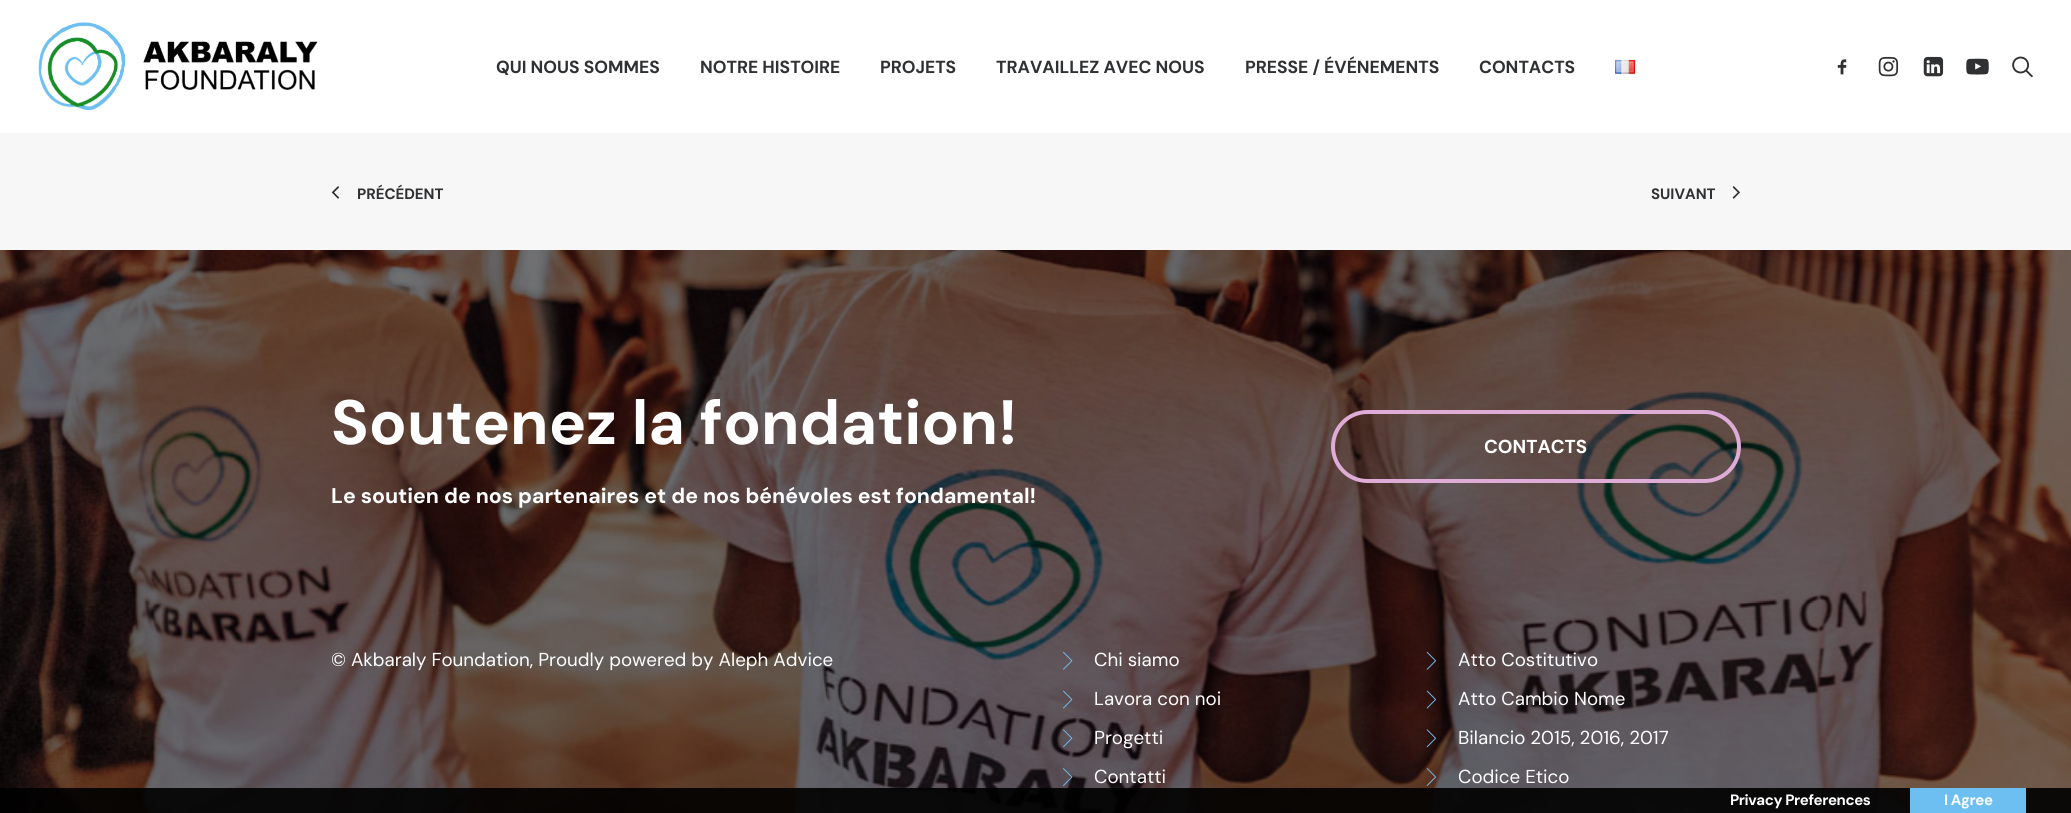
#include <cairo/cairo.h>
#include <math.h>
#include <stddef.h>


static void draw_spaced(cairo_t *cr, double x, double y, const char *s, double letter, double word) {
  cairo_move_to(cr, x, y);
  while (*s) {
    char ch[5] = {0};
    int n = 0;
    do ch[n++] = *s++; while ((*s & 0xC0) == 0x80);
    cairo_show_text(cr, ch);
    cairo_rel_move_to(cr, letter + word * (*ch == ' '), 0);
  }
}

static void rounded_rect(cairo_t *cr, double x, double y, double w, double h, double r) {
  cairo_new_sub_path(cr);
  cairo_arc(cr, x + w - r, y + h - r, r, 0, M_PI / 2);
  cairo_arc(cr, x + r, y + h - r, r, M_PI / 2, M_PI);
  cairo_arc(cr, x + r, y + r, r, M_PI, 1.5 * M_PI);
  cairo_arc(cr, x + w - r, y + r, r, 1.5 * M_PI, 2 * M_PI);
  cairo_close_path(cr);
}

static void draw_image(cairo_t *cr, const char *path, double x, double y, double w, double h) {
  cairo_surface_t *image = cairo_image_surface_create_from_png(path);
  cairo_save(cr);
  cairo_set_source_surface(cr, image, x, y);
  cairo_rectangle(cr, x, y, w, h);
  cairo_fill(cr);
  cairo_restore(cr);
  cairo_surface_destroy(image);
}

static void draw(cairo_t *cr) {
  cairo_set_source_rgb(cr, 247 / 255.0, 247 / 255.0, 247 / 255.0);
  cairo_paint(cr);
  cairo_set_source_rgb(cr, 1, 1, 1);
  cairo_rectangle(cr, 0, 0, 2071, 133);
  cairo_fill(cr);
  draw_image(cr, "images/1.png", 38, 22, 280, 88);
  draw_image(cr, "images/2.png", 1615, 59, 21, 15);
  draw_image(cr, "images/3.png", 1837, 59, 10, 16);
  draw_image(cr, "images/4.png", 1878, 56, 21, 21);
  draw_image(cr, "images/5.png", 1923, 56, 21, 21);
  draw_image(cr, "images/6.png", 1966, 58, 23, 17);
  draw_image(cr, "images/7.png", 2012, 56, 21, 22);
  draw_image(cr, "images/8.png", 331, 186, 9, 13);
  draw_image(cr, "images/9.png", 1732, 186, 8, 13);
  draw_image(cr, "images/10.png", 0, 250, 2071, 563);
  rounded_rect(cr, 1333, 412, 406, 69, 34.5);
  cairo_set_source_rgb(cr, 222 / 255.0, 172 / 255.0, 214 / 255.0);
  cairo_set_line_width(cr, 4);
  cairo_stroke(cr);
  draw_image(cr, "images/11.png", 1063, 651, 10, 19);
  draw_image(cr, "images/12.png", 1063, 690, 10, 19);
  draw_image(cr, "images/13.png", 1063, 729, 10, 19);
  draw_image(cr, "images/14.png", 1063, 768, 10, 18);
  draw_image(cr, "images/15.png", 1426, 651, 10, 19);
  draw_image(cr, "images/16.png", 1426, 690, 10, 19);
  draw_image(cr, "images/17.png", 1426, 729, 10, 19);
  draw_image(cr, "images/18.png", 1426, 768, 10, 18);
  cairo_set_source_rgba(cr, 0, 0, 0, 0.9);
  cairo_rectangle(cr, 0, 788, 2071, 25);
  cairo_fill(cr);
  cairo_set_source_rgb(cr, 110 / 255.0, 191 / 255.0, 241 / 255.0);
  cairo_rectangle(cr, 1910, 788, 116, 25);
  cairo_fill(cr);
  cairo_select_font_face(cr, "DM Sans", CAIRO_FONT_SLANT_NORMAL, CAIRO_FONT_WEIGHT_BOLD);
  cairo_set_font_size(cr, 17.5);
  cairo_set_source_rgb(cr, 48 / 255.0, 49 / 255.0, 51 / 255.0);
  cairo_move_to(cr, 496, 73);
  cairo_show_text(cr, "QUI NOUS SOMMES");
  cairo_move_to(cr, 700, 73);
  cairo_show_text(cr, "NOTRE HISTOIRE");
  cairo_move_to(cr, 880, 73);
  cairo_show_text(cr, "PROJETS");
  cairo_move_to(cr, 996, 73);
  cairo_show_text(cr, "TRAVAILLEZ AVEC NOUS");
  cairo_move_to(cr, 1245, 73);
  cairo_show_text(cr, "PRESSE / ÉVÉNEMENTS");
  cairo_move_to(cr, 1479, 73);
  cairo_show_text(cr, "CONTACTS");
  cairo_set_font_size(cr, 15);
  cairo_move_to(cr, 357, 199);
  cairo_show_text(cr, "PRÉCÉDENT");
  cairo_move_to(cr, 1651, 199);
  cairo_show_text(cr, "SUIVANT");
  cairo_set_font_size(cr, 62.5);
  cairo_set_source_rgb(cr, 1, 1, 1);
  cairo_move_to(cr, 331, 444);
  cairo_show_text(cr, "Soutenez la fondation!");
  cairo_set_font_size(cr, 21.25);
  cairo_move_to(cr, 331, 503);
  cairo_show_text(cr, "Le soutien de nos partenaires et de nos bénévoles est fondamental!");
  cairo_set_font_size(cr, 18.75);
  cairo_move_to(cr, 1484, 453);
  cairo_show_text(cr, "CONTACTS");
  cairo_select_font_face(cr, "DM Sans", CAIRO_FONT_SLANT_NORMAL, CAIRO_FONT_WEIGHT_NORMAL);
  cairo_move_to(cr, 331, 666);
  cairo_show_text(cr, "© Akbaraly Foundation, Proudly powered by Aleph Advice");
  cairo_move_to(cr, 1094, 666);
  cairo_show_text(cr, "Chi siamo");
  cairo_move_to(cr, 1094, 705);
  cairo_show_text(cr, "Lavora con noi");
  cairo_move_to(cr, 1094, 744);
  cairo_show_text(cr, "Progetti");
  cairo_move_to(cr, 1094, 783);
  cairo_show_text(cr, "Contatti");
  cairo_move_to(cr, 1458, 666);
  cairo_show_text(cr, "Atto Costitutivo");
  cairo_move_to(cr, 1458, 705);
  cairo_show_text(cr, "Atto Cambio Nome");
  cairo_move_to(cr, 1458, 744);
  cairo_show_text(cr, "Bilancio 2015, 2016, 2017");
  cairo_move_to(cr, 1458, 783);
  cairo_show_text(cr, "Codice Etico");
  cairo_select_font_face(cr, "DM Sans", CAIRO_FONT_SLANT_NORMAL, CAIRO_FONT_WEIGHT_BOLD);
  cairo_set_font_size(cr, 15);
  draw_spaced(cr, 1730, 805, "Privacy Preferences", -0.4, 0);
  draw_spaced(cr, 1944, 805, "I Agree", -0.4, 0);
}

int main(void) {
  cairo_surface_t *surface = cairo_image_surface_create(CAIRO_FORMAT_RGB24, 2071, 813);
  cairo_t *cr = cairo_create(surface);
  cairo_font_options_t *options = cairo_font_options_create();
  cairo_font_options_set_hint_metrics(options, CAIRO_HINT_METRICS_OFF);
  cairo_font_options_set_hint_style(options, CAIRO_HINT_STYLE_NONE);
  cairo_set_font_options(cr, options);
  cairo_set_miter_limit(cr, 4);
  draw(cr);
  cairo_surface_write_to_png(surface, "out.png");
  cairo_font_options_destroy(options);
  cairo_destroy(cr);
  cairo_surface_destroy(surface);
  return 0;
}
